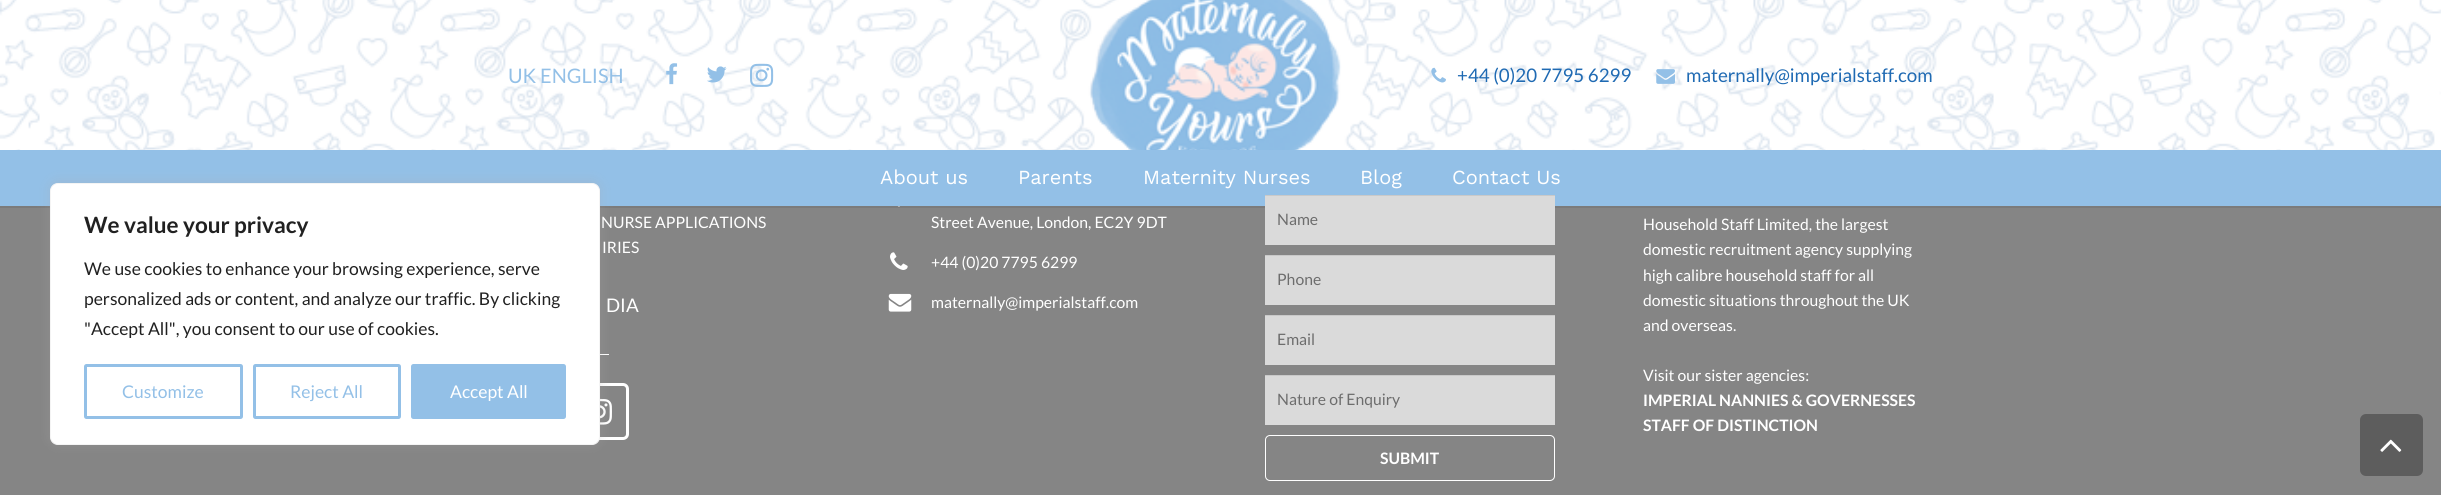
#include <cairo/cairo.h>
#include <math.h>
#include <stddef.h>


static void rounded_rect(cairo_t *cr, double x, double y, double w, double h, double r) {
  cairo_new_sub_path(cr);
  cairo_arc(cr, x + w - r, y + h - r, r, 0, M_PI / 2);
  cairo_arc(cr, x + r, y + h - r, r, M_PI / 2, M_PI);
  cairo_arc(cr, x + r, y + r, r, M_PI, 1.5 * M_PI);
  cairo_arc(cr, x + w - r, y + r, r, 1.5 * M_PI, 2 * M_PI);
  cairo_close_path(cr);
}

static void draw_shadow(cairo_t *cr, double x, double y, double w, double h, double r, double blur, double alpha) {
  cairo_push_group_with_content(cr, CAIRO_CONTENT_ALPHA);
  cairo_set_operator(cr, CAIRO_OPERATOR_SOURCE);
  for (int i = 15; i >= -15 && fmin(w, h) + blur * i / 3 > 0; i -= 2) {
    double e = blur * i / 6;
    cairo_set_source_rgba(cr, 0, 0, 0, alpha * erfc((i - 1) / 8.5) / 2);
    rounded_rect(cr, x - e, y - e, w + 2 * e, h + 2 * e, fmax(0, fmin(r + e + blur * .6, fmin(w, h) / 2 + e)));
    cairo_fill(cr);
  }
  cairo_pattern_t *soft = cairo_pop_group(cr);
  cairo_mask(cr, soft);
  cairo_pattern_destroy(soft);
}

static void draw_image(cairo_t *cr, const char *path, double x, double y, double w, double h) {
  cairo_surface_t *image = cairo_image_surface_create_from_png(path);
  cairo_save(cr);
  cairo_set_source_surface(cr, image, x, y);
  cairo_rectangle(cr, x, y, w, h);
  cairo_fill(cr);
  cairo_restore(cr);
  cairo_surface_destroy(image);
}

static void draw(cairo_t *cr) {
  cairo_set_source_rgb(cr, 133 / 255.0, 133 / 255.0, 133 / 255.0);
  cairo_paint(cr);
  draw_image(cr, "images/1.png", 0, 0, 2441, 150);
  draw_image(cr, "images/2.png", 666, 63, 12, 22);
  draw_image(cr, "images/3.png", 707, 66, 20, 17);
  draw_image(cr, "images/4.png", 750, 63, 24, 24);
  draw_image(cr, "images/5.png", 1431, 67, 15, 16);
  draw_image(cr, "images/6.png", 1656, 69, 19, 15);
  draw_image(cr, "images/8.png", 897, 206, 3, 1);
  cairo_set_source_rgba(cr, 0, 0, 0, 0.08);
  cairo_rectangle(cr, 0, 206, 2441, 2);
  cairo_fill(cr);
  cairo_set_source_rgb(cr, 147 / 255.0, 192 / 255.0, 231 / 255.0);
  cairo_rectangle(cr, 0, 150, 2441, 56);
  cairo_fill(cr);
  cairo_set_source_rgb(cr, 1, 1, 1);
  cairo_rectangle(cr, 600, 354, 9, 1);
  cairo_fill(cr);
  rounded_rect(cr, 572.5, 384.5, 55, 54, 4.5);
  cairo_set_line_width(cr, 3);
  cairo_stroke(cr);
  draw_image(cr, "images/7.png", 600, 398, 12, 27);
  cairo_set_source_rgb(cr, 172 / 255.0, 171 / 255.0, 171 / 255.0);
  draw_shadow(cr, 50, 181, 550, 263, 8, 6, 0.3);
  cairo_set_source_rgb(cr, 1, 1, 1);
  rounded_rect(cr, 50.5, 183.5, 549, 261, 7.5);
  cairo_fill_preserve(cr);
  cairo_set_source_rgb(cr, 244 / 255.0, 244 / 255.0, 244 / 255.0);
  cairo_set_line_width(cr, 1);
  cairo_stroke(cr);
  rounded_rect(cr, 85.5, 365.5, 156, 52, 1);
  cairo_set_source_rgb(cr, 147 / 255.0, 192 / 255.0, 231 / 255.0);
  cairo_set_line_width(cr, 3);
  cairo_stroke(cr);
  rounded_rect(cr, 254.5, 365.5, 145, 52, 1);
  cairo_stroke(cr);
  rounded_rect(cr, 412.5, 365.5, 152, 52, 1);
  cairo_fill_preserve(cr);
  cairo_stroke(cr);
  draw_image(cr, "images/9.png", 890, 252, 18, 18);
  draw_image(cr, "images/10.png", 888, 293, 24, 19);
  cairo_set_source_rgb(cr, 218 / 255.0, 218 / 255.0, 218 / 255.0);
  cairo_rectangle(cr, 1265, 196, 290, 49);
  cairo_fill(cr);
  cairo_set_source_rgb(cr, 201 / 255.0, 201 / 255.0, 201 / 255.0);
  cairo_rectangle(cr, 1265, 195, 290, 1);
  cairo_fill(cr);
  cairo_set_source_rgb(cr, 218 / 255.0, 218 / 255.0, 218 / 255.0);
  cairo_rectangle(cr, 1265, 256, 290, 49);
  cairo_fill(cr);
  cairo_set_source_rgb(cr, 201 / 255.0, 201 / 255.0, 201 / 255.0);
  cairo_rectangle(cr, 1265, 255, 290, 1);
  cairo_fill(cr);
  cairo_set_source_rgb(cr, 218 / 255.0, 218 / 255.0, 218 / 255.0);
  cairo_rectangle(cr, 1265, 316, 290, 49);
  cairo_fill(cr);
  cairo_set_source_rgb(cr, 201 / 255.0, 201 / 255.0, 201 / 255.0);
  cairo_rectangle(cr, 1265, 315, 290, 1);
  cairo_fill(cr);
  cairo_set_source_rgb(cr, 218 / 255.0, 218 / 255.0, 218 / 255.0);
  cairo_rectangle(cr, 1265, 376, 290, 49);
  cairo_fill(cr);
  cairo_set_source_rgb(cr, 201 / 255.0, 201 / 255.0, 201 / 255.0);
  cairo_rectangle(cr, 1265, 375, 290, 1);
  cairo_fill(cr);
  rounded_rect(cr, 1265.5, 435.5, 289, 45, 4.5);
  cairo_set_source_rgb(cr, 1, 1, 1);
  cairo_set_line_width(cr, 1);
  cairo_stroke(cr);
  cairo_set_source_rgb(cr, 93 / 255.0, 93 / 255.0, 93 / 255.0);
  rounded_rect(cr, 2360, 414, 63, 62, 6);
  cairo_fill(cr);
  draw_image(cr, "images/11.png", 2380, 439, 22, 13);
  cairo_select_font_face(cr, "Lato", CAIRO_FONT_SLANT_NORMAL, CAIRO_FONT_WEIGHT_NORMAL);
  cairo_set_font_size(cr, 20);
  cairo_set_source_rgb(cr, 147 / 255.0, 192 / 255.0, 231 / 255.0);
  cairo_move_to(cr, 508, 83);
  cairo_show_text(cr, "UK ENGLISH");
  cairo_set_font_size(cr, 18.75);
  cairo_set_source_rgb(cr, 31 / 255.0, 106 / 255.0, 179 / 255.0);
  cairo_move_to(cr, 1457, 82);
  cairo_show_text(cr, "+44 (0)20 7795 6299");
  cairo_move_to(cr, 1686, 82);
  cairo_show_text(cr, "maternally@imperialstaff.com");
  cairo_select_font_face(cr, "Work Sans", CAIRO_FONT_SLANT_NORMAL, CAIRO_FONT_WEIGHT_NORMAL);
  cairo_set_font_size(cr, 20);
  cairo_set_source_rgb(cr, 1, 1, 1);
  cairo_move_to(cr, 880, 184);
  cairo_show_text(cr, "About us");
  cairo_move_to(cr, 1018, 184);
  cairo_show_text(cr, "Parents");
  cairo_move_to(cr, 1143, 184);
  cairo_show_text(cr, "Maternity Nurses");
  cairo_move_to(cr, 1360, 184);
  cairo_show_text(cr, "Blog");
  cairo_move_to(cr, 1452, 184);
  cairo_show_text(cr, "Contact Us");
  cairo_select_font_face(cr, "Lato", CAIRO_FONT_SLANT_NORMAL, CAIRO_FONT_WEIGHT_BOLD);
  cairo_set_font_size(cr, 22.5);
  cairo_set_source_rgb(cr, 33 / 255.0, 33 / 255.0, 33 / 255.0);
  cairo_move_to(cr, 84, 233);
  cairo_show_text(cr, "We value your privacy");
  cairo_select_font_face(cr, "Lato", CAIRO_FONT_SLANT_NORMAL, CAIRO_FONT_WEIGHT_NORMAL);
  cairo_set_font_size(cr, 17.5);
  cairo_move_to(cr, 84, 275);
  cairo_show_text(cr, "We use cookies to enhance your browsing experience, serve");
  cairo_move_to(cr, 84, 305);
  cairo_show_text(cr, "personalized ads or content, and analyze our traffic. By clicking");
  cairo_move_to(cr, 84, 335);
  cairo_show_text(cr, "\"Accept All\", you consent to our use of cookies.");
  cairo_set_source_rgb(cr, 147 / 255.0, 192 / 255.0, 231 / 255.0);
  cairo_move_to(cr, 122, 398);
  cairo_show_text(cr, "Customize");
  cairo_move_to(cr, 290, 398);
  cairo_show_text(cr, "Reject All");
  cairo_set_source_rgb(cr, 1, 1, 1);
  cairo_move_to(cr, 450, 398);
  cairo_show_text(cr, "Accept All");
  cairo_set_font_size(cr, 15.75);
  cairo_move_to(cr, 601, 228);
  cairo_show_text(cr, "NURSE APPLICATIONS");
  cairo_move_to(cr, 602, 253);
  cairo_show_text(cr, "IRIES");
  cairo_set_font_size(cr, 18.75);
  cairo_move_to(cr, 606, 312);
  cairo_show_text(cr, "DIA");
  cairo_set_font_size(cr, 15.75);
  cairo_move_to(cr, 931, 228);
  cairo_show_text(cr, "Street Avenue, London, EC2Y 9DT");
  cairo_move_to(cr, 931, 268);
  cairo_show_text(cr, "+44 (0)20 7795 6299");
  cairo_move_to(cr, 931, 308);
  cairo_show_text(cr, "maternally@imperialstaff.com");
  cairo_set_source_rgb(cr, 109 / 255.0, 109 / 255.0, 109 / 255.0);
  cairo_move_to(cr, 1277, 225);
  cairo_show_text(cr, "Name");
  cairo_move_to(cr, 1277, 285);
  cairo_show_text(cr, "Phone");
  cairo_move_to(cr, 1277, 345);
  cairo_show_text(cr, "Email");
  cairo_move_to(cr, 1277, 405);
  cairo_show_text(cr, "Nature of Enquiry");
  cairo_select_font_face(cr, "Lato", CAIRO_FONT_SLANT_NORMAL, CAIRO_FONT_WEIGHT_BOLD);
  cairo_set_source_rgb(cr, 1, 1, 1);
  cairo_move_to(cr, 1380, 464);
  cairo_show_text(cr, "SUBMIT");
  cairo_select_font_face(cr, "Lato", CAIRO_FONT_SLANT_NORMAL, CAIRO_FONT_WEIGHT_NORMAL);
  cairo_move_to(cr, 1643, 230);
  cairo_show_text(cr, "Household Staff Limited, the largest");
  cairo_move_to(cr, 1643, 255);
  cairo_show_text(cr, "domestic recruitment agency supplying");
  cairo_move_to(cr, 1643, 281);
  cairo_show_text(cr, "high calibre household staff for all");
  cairo_move_to(cr, 1643, 306);
  cairo_show_text(cr, "domestic situations throughout the UK");
  cairo_move_to(cr, 1643, 331);
  cairo_show_text(cr, "and overseas.");
  cairo_move_to(cr, 1643, 381);
  cairo_show_text(cr, "Visit our sister agencies:");
  cairo_select_font_face(cr, "Lato", CAIRO_FONT_SLANT_NORMAL, CAIRO_FONT_WEIGHT_BOLD);
  cairo_move_to(cr, 1643, 406);
  cairo_show_text(cr, "IMPERIAL NANNIES & GOVERNESSES");
  cairo_move_to(cr, 1643, 431);
  cairo_show_text(cr, "STAFF OF DISTINCTION");
}

int main(void) {
  cairo_surface_t *surface = cairo_image_surface_create(CAIRO_FORMAT_RGB24, 2441, 495);
  cairo_t *cr = cairo_create(surface);
  cairo_font_options_t *options = cairo_font_options_create();
  cairo_font_options_set_hint_metrics(options, CAIRO_HINT_METRICS_OFF);
  cairo_font_options_set_hint_style(options, CAIRO_HINT_STYLE_NONE);
  cairo_set_font_options(cr, options);
  cairo_set_miter_limit(cr, 4);
  draw(cr);
  cairo_surface_write_to_png(surface, "out.png");
  cairo_font_options_destroy(options);
  cairo_destroy(cr);
  cairo_surface_destroy(surface);
  return 0;
}
